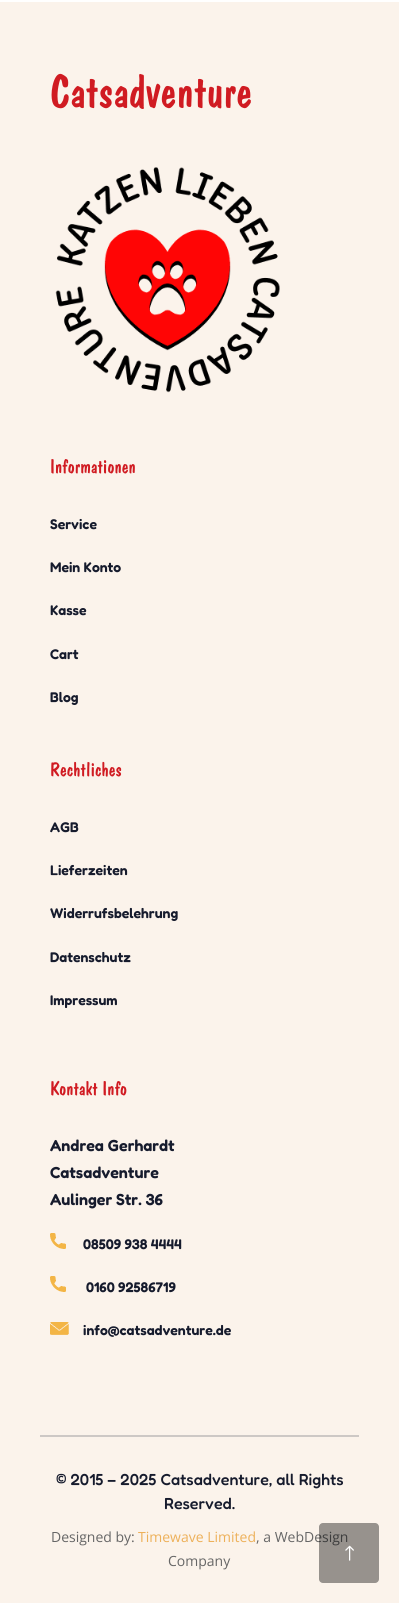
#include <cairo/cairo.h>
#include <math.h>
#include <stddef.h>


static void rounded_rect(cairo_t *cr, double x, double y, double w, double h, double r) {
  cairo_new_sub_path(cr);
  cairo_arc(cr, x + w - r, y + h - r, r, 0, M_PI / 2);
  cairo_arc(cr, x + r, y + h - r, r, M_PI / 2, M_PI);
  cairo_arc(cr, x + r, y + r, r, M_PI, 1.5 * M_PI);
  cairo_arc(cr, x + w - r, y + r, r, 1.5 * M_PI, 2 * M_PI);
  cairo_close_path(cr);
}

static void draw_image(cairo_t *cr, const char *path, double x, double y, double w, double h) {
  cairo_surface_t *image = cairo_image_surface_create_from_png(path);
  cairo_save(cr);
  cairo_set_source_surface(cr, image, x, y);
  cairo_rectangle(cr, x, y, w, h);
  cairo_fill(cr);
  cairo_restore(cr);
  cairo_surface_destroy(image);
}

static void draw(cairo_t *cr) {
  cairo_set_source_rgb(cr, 251 / 255.0, 243 / 255.0, 235 / 255.0);
  cairo_paint(cr);
  cairo_set_source_rgb(cr, 1, 1, 1);
  cairo_rectangle(cr, 0, 0, 399, 2);
  cairo_fill(cr);
  draw_image(cr, "images/1.png", 55, 167, 225, 226);
  draw_image(cr, "images/2.png", 50, 1233, 16, 16);
  draw_image(cr, "images/2.png", 50, 1276, 16, 16);
  draw_image(cr, "images/3.png", 50, 1322, 19, 13);
  cairo_set_source_rgb(cr, 205 / 255.0, 200 / 255.0, 197 / 255.0);
  cairo_rectangle(cr, 40, 1435, 319, 2);
  cairo_fill(cr);
  cairo_select_font_face(cr, "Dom", CAIRO_FONT_SLANT_NORMAL, CAIRO_FONT_WEIGHT_NORMAL);
  cairo_set_font_size(cr, 47);
  cairo_set_source_rgb(cr, 208 / 255.0, 27 / 255.0, 34 / 255.0);
  cairo_move_to(cr, 50, 107);
  cairo_show_text(cr, "Catsadventure");
  cairo_set_font_size(cr, 20);
  cairo_move_to(cr, 50, 473);
  cairo_show_text(cr, "Informationen");
  cairo_select_font_face(cr, "Fredoka SemiBold", CAIRO_FONT_SLANT_NORMAL, CAIRO_FONT_WEIGHT_NORMAL);
  cairo_set_font_size(cr, 14);
  cairo_set_source_rgb(cr, 22 / 255.0, 27 / 255.0, 45 / 255.0);
  cairo_move_to(cr, 50, 529);
  cairo_show_text(cr, "Service");
  cairo_move_to(cr, 50, 572);
  cairo_show_text(cr, "Mein Konto");
  cairo_move_to(cr, 50, 615);
  cairo_show_text(cr, "Kasse");
  cairo_move_to(cr, 50, 659);
  cairo_show_text(cr, "Cart");
  cairo_move_to(cr, 50, 702);
  cairo_show_text(cr, "Blog");
  cairo_select_font_face(cr, "Dom", CAIRO_FONT_SLANT_NORMAL, CAIRO_FONT_WEIGHT_NORMAL);
  cairo_set_font_size(cr, 20);
  cairo_set_source_rgb(cr, 208 / 255.0, 27 / 255.0, 34 / 255.0);
  cairo_move_to(cr, 50, 776);
  cairo_show_text(cr, "Rechtliches");
  cairo_select_font_face(cr, "Fredoka SemiBold", CAIRO_FONT_SLANT_NORMAL, CAIRO_FONT_WEIGHT_NORMAL);
  cairo_set_font_size(cr, 14);
  cairo_set_source_rgb(cr, 22 / 255.0, 27 / 255.0, 45 / 255.0);
  cairo_move_to(cr, 50, 832);
  cairo_show_text(cr, "AGB");
  cairo_move_to(cr, 50, 875);
  cairo_show_text(cr, "Lieferzeiten");
  cairo_move_to(cr, 50, 918);
  cairo_show_text(cr, "Widerrufsbelehrung");
  cairo_move_to(cr, 50, 962);
  cairo_show_text(cr, "Datenschutz");
  cairo_move_to(cr, 50, 1005);
  cairo_show_text(cr, "Impressum");
  cairo_select_font_face(cr, "Dom", CAIRO_FONT_SLANT_NORMAL, CAIRO_FONT_WEIGHT_NORMAL);
  cairo_set_font_size(cr, 20);
  cairo_set_source_rgb(cr, 208 / 255.0, 27 / 255.0, 34 / 255.0);
  cairo_move_to(cr, 50, 1095);
  cairo_show_text(cr, "Kontakt Info");
  cairo_select_font_face(cr, "Fredoka SemiBold", CAIRO_FONT_SLANT_NORMAL, CAIRO_FONT_WEIGHT_NORMAL);
  cairo_set_font_size(cr, 16);
  cairo_set_source_rgb(cr, 22 / 255.0, 27 / 255.0, 45 / 255.0);
  cairo_move_to(cr, 50, 1151);
  cairo_show_text(cr, "Andrea Gerhardt");
  cairo_move_to(cr, 50, 1178);
  cairo_show_text(cr, "Catsadventure");
  cairo_move_to(cr, 50, 1205);
  cairo_show_text(cr, "Aulinger Str. 36");
  cairo_set_font_size(cr, 14);
  cairo_move_to(cr, 83, 1249);
  cairo_show_text(cr, "08509 938 4444");
  cairo_move_to(cr, 86, 1292);
  cairo_show_text(cr, "0160 92586719");
  cairo_move_to(cr, 83, 1335);
  cairo_show_text(cr, "info@catsadventure.de");
  cairo_select_font_face(cr, "Fredoka Medium", CAIRO_FONT_SLANT_NORMAL, CAIRO_FONT_WEIGHT_NORMAL);
  cairo_set_font_size(cr, 16);
  cairo_move_to(cr, 56, 1485);
  cairo_show_text(cr, "© 2015 – 2025 Catsadventure, all Rights");
  cairo_move_to(cr, 164, 1509);
  cairo_show_text(cr, "Reserved.");
  cairo_select_font_face(cr, "Open Sans", CAIRO_FONT_SLANT_NORMAL, CAIRO_FONT_WEIGHT_NORMAL);
  cairo_set_font_size(cr, 14);
  cairo_set_source_rgb(cr, 102 / 255.0, 102 / 255.0, 102 / 255.0);
  cairo_move_to(cr, 51, 1542);
  cairo_show_text(cr, "Designed by:");
  cairo_set_source_rgb(cr, 237 / 255.0, 176 / 255.0, 89 / 255.0);
  cairo_move_to(cr, 138, 1542);
  cairo_show_text(cr, "Timewave Limited");
  cairo_set_source_rgb(cr, 102 / 255.0, 102 / 255.0, 102 / 255.0);
  cairo_move_to(cr, 256, 1542);
  cairo_show_text(cr, ", a WebDesign");
  cairo_move_to(cr, 168, 1566);
  cairo_show_text(cr, "Company");
  cairo_set_source_rgba(cr, 0, 0, 0, 0.4);
  rounded_rect(cr, 319, 1523, 60, 60, 4);
  cairo_fill(cr);
  draw_image(cr, "images/4.png", 345, 1545, 9, 16);
}

int main(void) {
  cairo_surface_t *surface = cairo_image_surface_create(CAIRO_FORMAT_RGB24, 399, 1603);
  cairo_t *cr = cairo_create(surface);
  cairo_font_options_t *options = cairo_font_options_create();
  cairo_font_options_set_hint_metrics(options, CAIRO_HINT_METRICS_OFF);
  cairo_font_options_set_hint_style(options, CAIRO_HINT_STYLE_NONE);
  cairo_set_font_options(cr, options);
  cairo_set_miter_limit(cr, 4);
  draw(cr);
  cairo_surface_write_to_png(surface, "out.png");
  cairo_font_options_destroy(options);
  cairo_destroy(cr);
  cairo_surface_destroy(surface);
  return 0;
}
